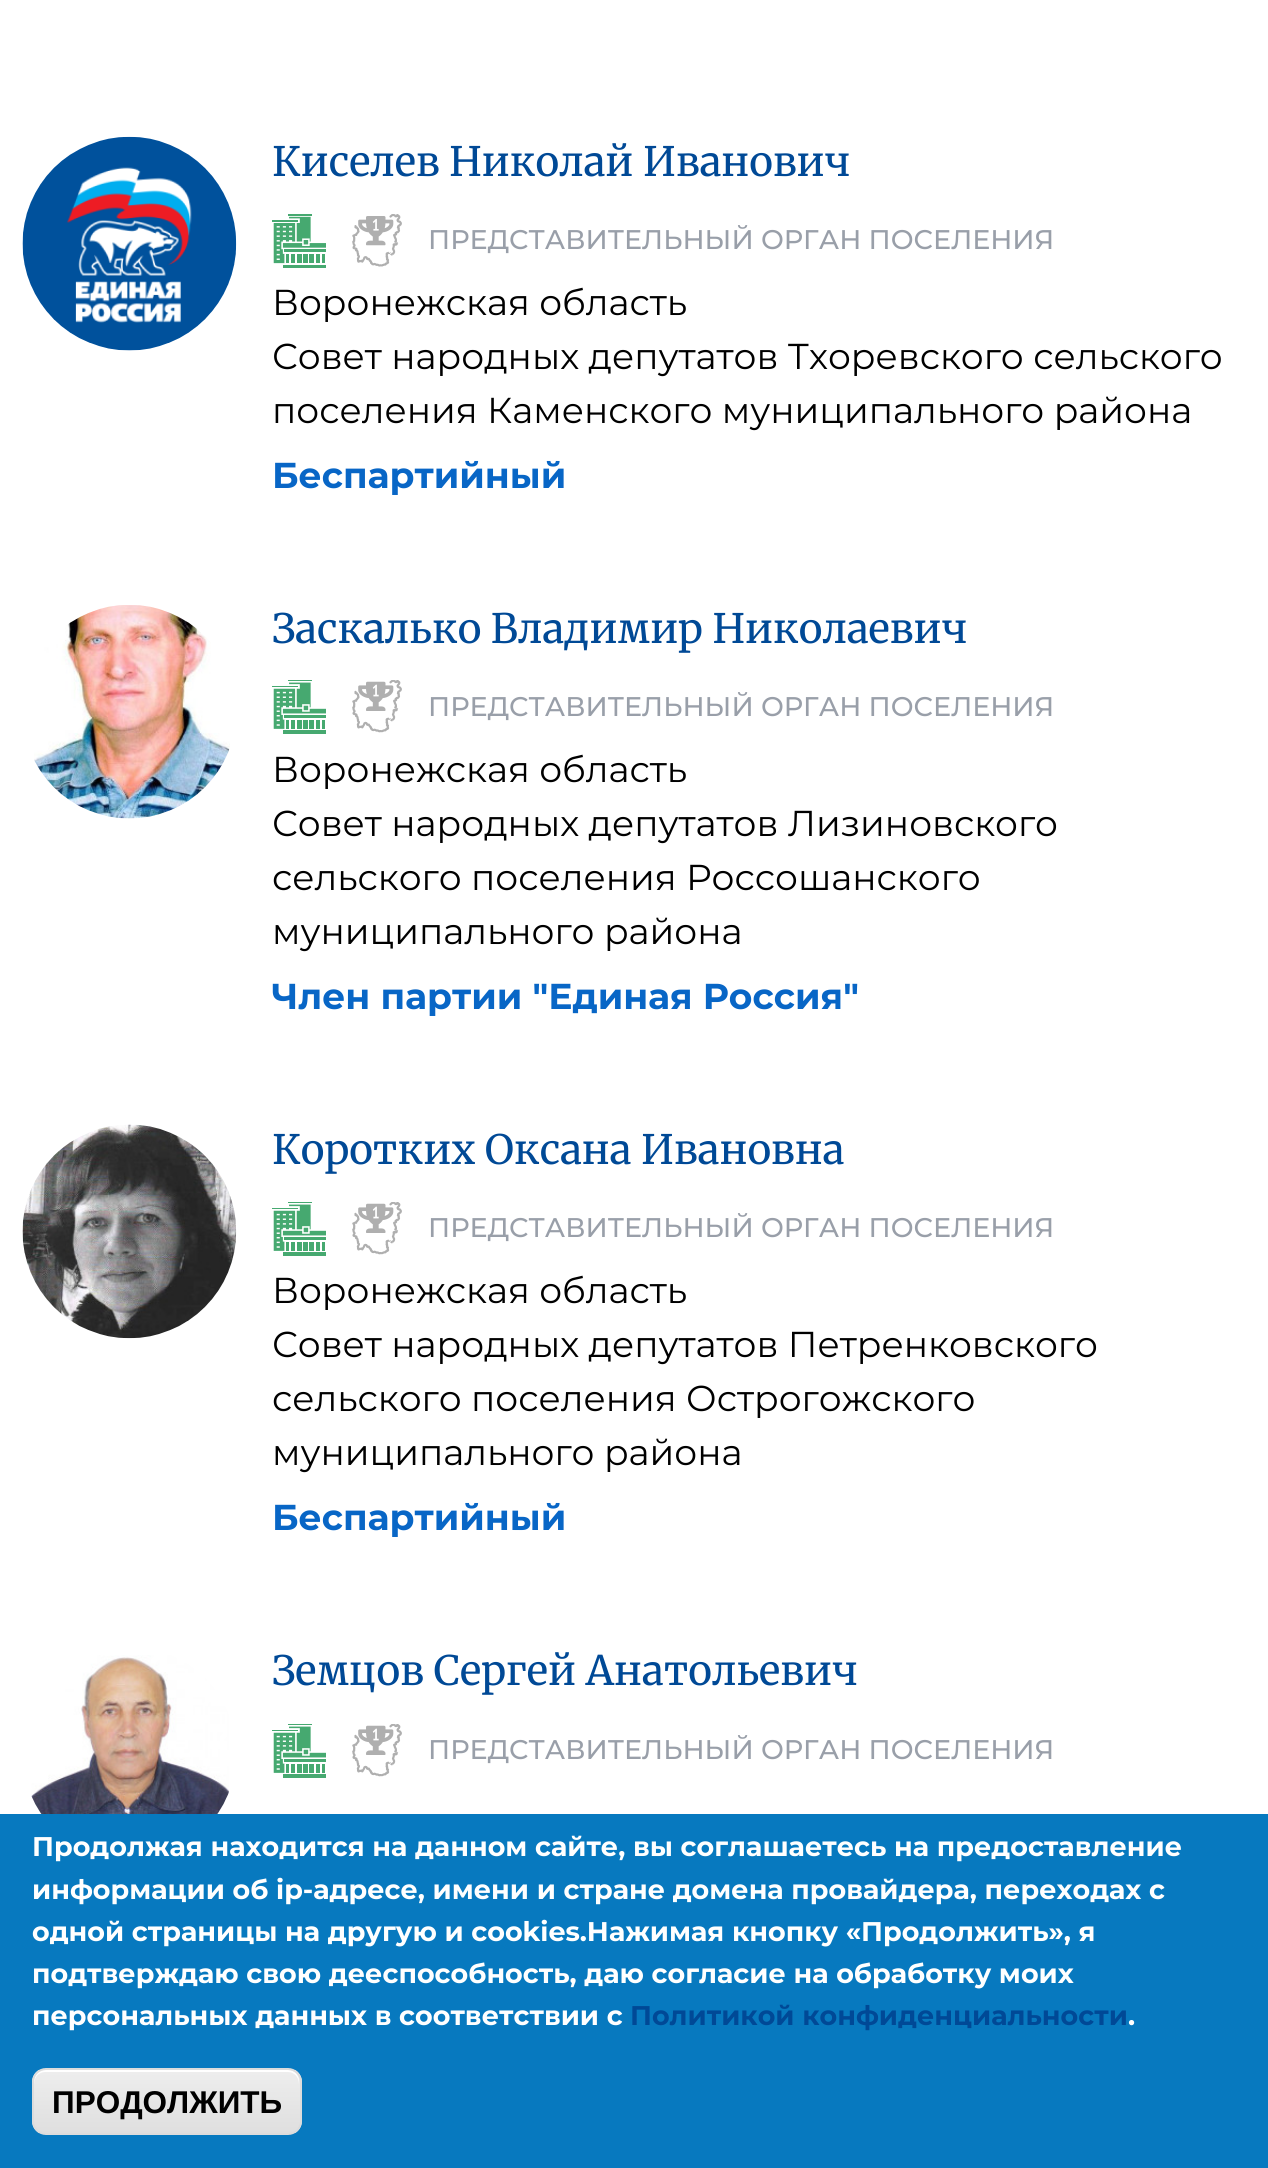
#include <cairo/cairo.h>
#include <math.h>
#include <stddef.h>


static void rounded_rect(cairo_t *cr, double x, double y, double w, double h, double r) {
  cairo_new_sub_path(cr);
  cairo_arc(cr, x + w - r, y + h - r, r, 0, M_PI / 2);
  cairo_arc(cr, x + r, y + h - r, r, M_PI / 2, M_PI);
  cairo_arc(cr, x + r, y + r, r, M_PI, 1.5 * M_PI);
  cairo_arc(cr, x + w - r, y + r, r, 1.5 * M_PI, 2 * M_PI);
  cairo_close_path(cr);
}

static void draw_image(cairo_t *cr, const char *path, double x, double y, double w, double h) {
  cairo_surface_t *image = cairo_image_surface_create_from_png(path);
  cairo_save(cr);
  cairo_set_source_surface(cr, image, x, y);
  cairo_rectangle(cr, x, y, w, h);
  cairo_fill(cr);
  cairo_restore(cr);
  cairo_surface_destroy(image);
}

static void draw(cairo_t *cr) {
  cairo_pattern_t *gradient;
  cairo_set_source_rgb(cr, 1, 1, 1);
  cairo_paint(cr);
  draw_image(cr, "images/1.png", 22, 136, 215, 215);
  draw_image(cr, "images/2.png", 272, 214, 54, 54);
  draw_image(cr, "images/3.png", 352, 214, 50, 53);
  draw_image(cr, "images/4.png", 34, 605, 196, 214);
  draw_image(cr, "images/5.png", 272, 680, 54, 54);
  draw_image(cr, "images/6.png", 352, 680, 50, 53);
  draw_image(cr, "images/7.png", 22, 1124, 215, 215);
  draw_image(cr, "images/5.png", 272, 1202, 54, 54);
  draw_image(cr, "images/6.png", 352, 1202, 50, 53);
  draw_image(cr, "images/8.png", 31, 1655, 198, 159);
  draw_image(cr, "images/5.png", 272, 1724, 54, 54);
  draw_image(cr, "images/6.png", 352, 1724, 50, 53);
  cairo_set_source_rgb(cr, 7 / 255.0, 121 / 255.0, 191 / 255.0);
  cairo_rectangle(cr, 0, 1814, 1268, 354);
  cairo_fill(cr);
  cairo_save(cr);
  rounded_rect(cr, 32, 2068, 270, 67, 14);
  cairo_clip(cr);
  gradient = cairo_pattern_create_linear(167, 2070, 167, 2133);
  cairo_pattern_add_color_stop_rgba(gradient, 0.05, 237 / 255.0, 237 / 255.0, 237 / 255.0, 1);
  cairo_pattern_add_color_stop_rgba(gradient, 1, 223 / 255.0, 223 / 255.0, 223 / 255.0, 1);
  cairo_set_source(cr, gradient);
  cairo_pattern_destroy(gradient);
  cairo_rectangle(cr, 32, 2070, 270, 63);
  cairo_fill(cr);
  cairo_restore(cr);
  cairo_set_source_rgb(cr, 1, 1, 1);
  cairo_new_path(cr);
  cairo_move_to(cr, 45, 2072);
  cairo_line_to(cr, 288, 2072);
  cairo_curve_to(cr, 294, 2072, 299, 2077, 299, 2084);
  cairo_line_to(cr, 299, 2081);
  cairo_curve_to(cr, 299, 2075, 294, 2070, 288, 2070);
  cairo_line_to(cr, 45, 2070);
  cairo_curve_to(cr, 39, 2070, 34, 2075, 34, 2081);
  cairo_line_to(cr, 34, 2084);
  cairo_curve_to(cr, 34, 2077, 39, 2072, 45, 2072);
  cairo_close_path(cr);
  cairo_fill(cr);
  rounded_rect(cr, 33, 2069, 268, 65, 13);
  cairo_set_source_rgb(cr, 220 / 255.0, 220 / 255.0, 220 / 255.0);
  cairo_stroke(cr);
  cairo_select_font_face(cr, "Merriweather", CAIRO_FONT_SLANT_NORMAL, CAIRO_FONT_WEIGHT_NORMAL);
  cairo_set_font_size(cr, 40.5);
  cairo_set_source_rgb(cr, 0, 73 / 255.0, 150 / 255.0);
  cairo_move_to(cr, 272, 176);
  cairo_show_text(cr, "Киселев Николай Иванович");
  cairo_select_font_face(cr, "Montserrat Medium", CAIRO_FONT_SLANT_NORMAL, CAIRO_FONT_WEIGHT_NORMAL);
  cairo_set_font_size(cr, 27);
  cairo_set_source_rgb(cr, 153 / 255.0, 159 / 255.0, 169 / 255.0);
  cairo_move_to(cr, 428, 249);
  cairo_show_text(cr, "ПРЕДСТАВИТЕЛЬНЫЙ ОРГАН ПОСЕЛЕНИЯ");
  cairo_select_font_face(cr, "Montserrat", CAIRO_FONT_SLANT_NORMAL, CAIRO_FONT_WEIGHT_NORMAL);
  cairo_set_font_size(cr, 36);
  cairo_set_source_rgb(cr, 0, 0, 0);
  cairo_move_to(cr, 272, 315);
  cairo_show_text(cr, "Воронежская область");
  cairo_move_to(cr, 272, 369);
  cairo_show_text(cr, "Совет народных депутатов Тхоревского сельского");
  cairo_move_to(cr, 272, 423);
  cairo_show_text(cr, "поселения Каменского муниципального района");
  cairo_select_font_face(cr, "Montserrat", CAIRO_FONT_SLANT_NORMAL, CAIRO_FONT_WEIGHT_BOLD);
  cairo_set_source_rgb(cr, 8 / 255.0, 102 / 255.0, 198 / 255.0);
  cairo_move_to(cr, 272, 488);
  cairo_show_text(cr, "Беспартийный");
  cairo_select_font_face(cr, "Merriweather", CAIRO_FONT_SLANT_NORMAL, CAIRO_FONT_WEIGHT_NORMAL);
  cairo_set_font_size(cr, 40.5);
  cairo_set_source_rgb(cr, 0, 73 / 255.0, 150 / 255.0);
  cairo_move_to(cr, 272, 643);
  cairo_show_text(cr, "Заскалько Владимир Николаевич");
  cairo_select_font_face(cr, "Montserrat Medium", CAIRO_FONT_SLANT_NORMAL, CAIRO_FONT_WEIGHT_NORMAL);
  cairo_set_font_size(cr, 27);
  cairo_set_source_rgb(cr, 153 / 255.0, 159 / 255.0, 169 / 255.0);
  cairo_move_to(cr, 428, 716);
  cairo_show_text(cr, "ПРЕДСТАВИТЕЛЬНЫЙ ОРГАН ПОСЕЛЕНИЯ");
  cairo_select_font_face(cr, "Montserrat", CAIRO_FONT_SLANT_NORMAL, CAIRO_FONT_WEIGHT_NORMAL);
  cairo_set_font_size(cr, 36);
  cairo_set_source_rgb(cr, 0, 0, 0);
  cairo_move_to(cr, 272, 782);
  cairo_show_text(cr, "Воронежская область");
  cairo_move_to(cr, 272, 836);
  cairo_show_text(cr, "Совет народных депутатов Лизиновского");
  cairo_move_to(cr, 272, 890);
  cairo_show_text(cr, "сельского поселения Россошанского");
  cairo_move_to(cr, 272, 944);
  cairo_show_text(cr, "муниципального района");
  cairo_select_font_face(cr, "Montserrat", CAIRO_FONT_SLANT_NORMAL, CAIRO_FONT_WEIGHT_BOLD);
  cairo_set_source_rgb(cr, 8 / 255.0, 102 / 255.0, 198 / 255.0);
  cairo_move_to(cr, 272, 1009);
  cairo_show_text(cr, "Член партии \"Единая Россия\"");
  cairo_select_font_face(cr, "Merriweather", CAIRO_FONT_SLANT_NORMAL, CAIRO_FONT_WEIGHT_NORMAL);
  cairo_set_font_size(cr, 40.5);
  cairo_set_source_rgb(cr, 0, 73 / 255.0, 150 / 255.0);
  cairo_move_to(cr, 272, 1164);
  cairo_show_text(cr, "Коротких Оксана Ивановна");
  cairo_select_font_face(cr, "Montserrat Medium", CAIRO_FONT_SLANT_NORMAL, CAIRO_FONT_WEIGHT_NORMAL);
  cairo_set_font_size(cr, 27);
  cairo_set_source_rgb(cr, 153 / 255.0, 159 / 255.0, 169 / 255.0);
  cairo_move_to(cr, 428, 1237);
  cairo_show_text(cr, "ПРЕДСТАВИТЕЛЬНЫЙ ОРГАН ПОСЕЛЕНИЯ");
  cairo_select_font_face(cr, "Montserrat", CAIRO_FONT_SLANT_NORMAL, CAIRO_FONT_WEIGHT_NORMAL);
  cairo_set_font_size(cr, 36);
  cairo_set_source_rgb(cr, 0, 0, 0);
  cairo_move_to(cr, 272, 1303);
  cairo_show_text(cr, "Воронежская область");
  cairo_move_to(cr, 272, 1357);
  cairo_show_text(cr, "Совет народных депутатов Петренковского");
  cairo_move_to(cr, 272, 1411);
  cairo_show_text(cr, "сельского поселения Острогожского");
  cairo_move_to(cr, 272, 1465);
  cairo_show_text(cr, "муниципального района");
  cairo_select_font_face(cr, "Montserrat", CAIRO_FONT_SLANT_NORMAL, CAIRO_FONT_WEIGHT_BOLD);
  cairo_set_source_rgb(cr, 8 / 255.0, 102 / 255.0, 198 / 255.0);
  cairo_move_to(cr, 272, 1530);
  cairo_show_text(cr, "Беспартийный");
  cairo_select_font_face(cr, "Merriweather", CAIRO_FONT_SLANT_NORMAL, CAIRO_FONT_WEIGHT_NORMAL);
  cairo_set_font_size(cr, 40.5);
  cairo_set_source_rgb(cr, 0, 73 / 255.0, 150 / 255.0);
  cairo_move_to(cr, 272, 1685);
  cairo_show_text(cr, "Земцов Сергей Анатольевич");
  cairo_select_font_face(cr, "Montserrat Medium", CAIRO_FONT_SLANT_NORMAL, CAIRO_FONT_WEIGHT_NORMAL);
  cairo_set_font_size(cr, 27);
  cairo_set_source_rgb(cr, 153 / 255.0, 159 / 255.0, 169 / 255.0);
  cairo_move_to(cr, 428, 1759);
  cairo_show_text(cr, "ПРЕДСТАВИТЕЛЬНЫЙ ОРГАН ПОСЕЛЕНИЯ");
  cairo_select_font_face(cr, "Montserrat", CAIRO_FONT_SLANT_NORMAL, CAIRO_FONT_WEIGHT_BOLD);
  cairo_set_source_rgb(cr, 1, 1, 1);
  cairo_move_to(cr, 32, 1856);
  cairo_show_text(cr, "Продолжая находится на данном сайте, вы соглашаетесь на предоставление");
  cairo_move_to(cr, 32, 1899);
  cairo_show_text(cr, "информации об ip-адресе, имени и стране домена провайдера, переходах с");
  cairo_move_to(cr, 32, 1941);
  cairo_show_text(cr, "одной страницы на другую и cookies.Нажимая кнопку «Продолжить», я");
  cairo_move_to(cr, 32, 1983);
  cairo_show_text(cr, "подтверждаю свою дееспособность, даю согласие на обработку моих");
  cairo_move_to(cr, 32, 2025);
  cairo_show_text(cr, "персональных данных в соответствии с");
  cairo_set_source_rgb(cr, 0, 73 / 255.0, 150 / 255.0);
  cairo_move_to(cr, 630, 2025);
  cairo_show_text(cr, "Политикой конфиденциальности");
  cairo_set_source_rgb(cr, 1, 1, 1);
  cairo_move_to(cr, 1128, 2025);
  cairo_show_text(cr, ".");
  cairo_select_font_face(cr, "Liberation Sans", CAIRO_FONT_SLANT_NORMAL, CAIRO_FONT_WEIGHT_BOLD);
  cairo_set_font_size(cr, 31.5);
  cairo_set_source_rgb(cr, 0, 0, 0);
  cairo_move_to(cr, 52, 2113);
  cairo_show_text(cr, "ПРОДОЛЖИТЬ");
}

int main(void) {
  cairo_surface_t *surface = cairo_image_surface_create(CAIRO_FORMAT_RGB24, 1268, 2168);
  cairo_t *cr = cairo_create(surface);
  cairo_font_options_t *options = cairo_font_options_create();
  cairo_font_options_set_hint_metrics(options, CAIRO_HINT_METRICS_OFF);
  cairo_font_options_set_hint_style(options, CAIRO_HINT_STYLE_NONE);
  cairo_set_font_options(cr, options);
  cairo_set_miter_limit(cr, 4);
  draw(cr);
  cairo_surface_write_to_png(surface, "out.png");
  cairo_font_options_destroy(options);
  cairo_destroy(cr);
  cairo_surface_destroy(surface);
  return 0;
}
